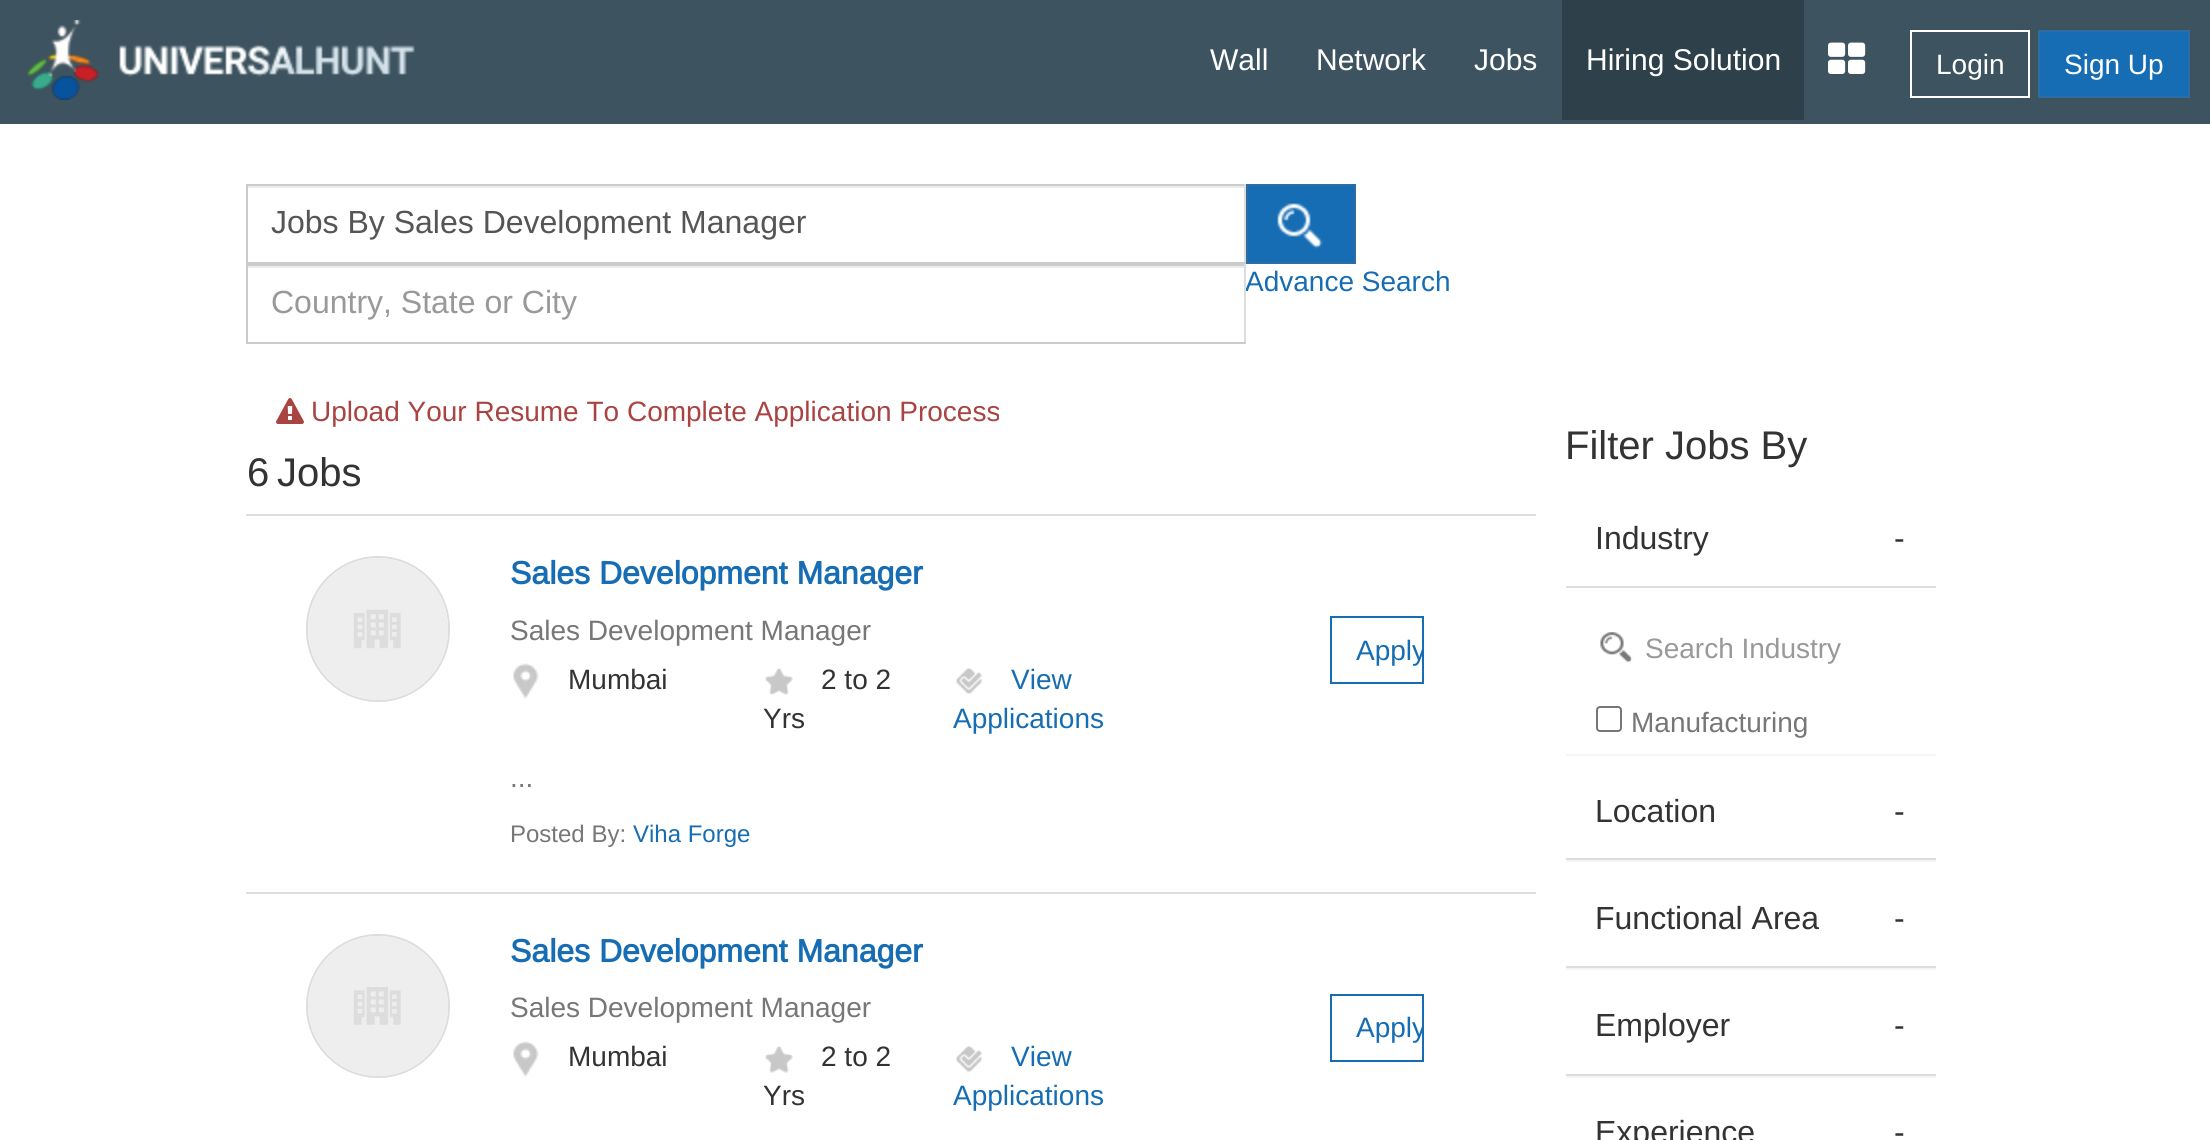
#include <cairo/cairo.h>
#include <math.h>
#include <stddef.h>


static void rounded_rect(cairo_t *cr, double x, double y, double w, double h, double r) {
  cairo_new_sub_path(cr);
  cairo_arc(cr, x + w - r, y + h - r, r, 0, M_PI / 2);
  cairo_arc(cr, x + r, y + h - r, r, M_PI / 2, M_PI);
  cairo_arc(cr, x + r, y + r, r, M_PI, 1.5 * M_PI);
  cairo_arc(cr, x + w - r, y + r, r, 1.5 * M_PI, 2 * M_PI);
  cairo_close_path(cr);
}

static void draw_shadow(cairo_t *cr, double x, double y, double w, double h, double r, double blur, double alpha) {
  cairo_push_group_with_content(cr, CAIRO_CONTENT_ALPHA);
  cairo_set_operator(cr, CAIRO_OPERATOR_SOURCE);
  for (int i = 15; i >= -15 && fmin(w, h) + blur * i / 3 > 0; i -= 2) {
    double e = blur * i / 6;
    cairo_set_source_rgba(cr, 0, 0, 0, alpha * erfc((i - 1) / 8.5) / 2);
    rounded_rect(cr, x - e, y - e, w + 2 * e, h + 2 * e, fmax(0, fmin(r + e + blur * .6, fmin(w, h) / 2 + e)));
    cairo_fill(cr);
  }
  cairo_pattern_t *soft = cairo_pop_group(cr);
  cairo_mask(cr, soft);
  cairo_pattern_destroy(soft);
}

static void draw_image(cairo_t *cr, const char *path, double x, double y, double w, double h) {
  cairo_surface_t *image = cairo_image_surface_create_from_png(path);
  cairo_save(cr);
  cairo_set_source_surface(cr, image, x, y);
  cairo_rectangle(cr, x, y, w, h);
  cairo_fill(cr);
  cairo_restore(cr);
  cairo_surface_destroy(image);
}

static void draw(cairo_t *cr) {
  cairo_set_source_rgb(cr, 1, 1, 1);
  cairo_paint(cr);
  cairo_set_source_rgb(cr, 61 / 255.0, 84 / 255.0, 96 / 255.0);
  cairo_rectangle(cr, 0, 0, 2210, 124);
  cairo_fill(cr);
  draw_image(cr, "images/1.png", 27, 20, 388, 80);
  cairo_set_source_rgb(cr, 46 / 255.0, 65 / 255.0, 75 / 255.0);
  cairo_rectangle(cr, 1562, 0, 242, 120);
  cairo_fill(cr);
  draw_image(cr, "images/2.png", 1828, 42, 38, 32);
  cairo_rectangle(cr, 1911, 31, 118, 66);
  cairo_set_source_rgb(cr, 1, 1, 1);
  cairo_stroke(cr);
  cairo_set_source_rgb(cr, 22 / 255.0, 109 / 255.0, 180 / 255.0);
  cairo_rectangle(cr, 2039, 31, 150, 66);
  cairo_fill_preserve(cr);
  cairo_set_source_rgb(cr, 46 / 255.0, 109 / 255.0, 164 / 255.0);
  cairo_stroke(cr);
  cairo_set_source_rgb(cr, 236 / 255.0, 236 / 255.0, 236 / 255.0);
  cairo_rectangle(cr, 248, 186, 996, 2);
  cairo_fill(cr);
  cairo_set_source_rgb(cr, 204 / 255.0, 204 / 255.0, 204 / 255.0);
  cairo_rectangle(cr, 246, 184, 1000, 2);
  cairo_fill(cr);
  cairo_set_source_rgb(cr, 221 / 255.0, 221 / 255.0, 221 / 255.0);
  cairo_rectangle(cr, 1244, 184, 2, 80);
  cairo_fill(cr);
  cairo_set_source_rgb(cr, 204 / 255.0, 204 / 255.0, 204 / 255.0);
  cairo_rectangle(cr, 246, 262, 1000, 4);
  cairo_fill(cr);
  cairo_rectangle(cr, 246, 184, 2, 80);
  cairo_fill(cr);
  cairo_set_source_rgb(cr, 22 / 255.0, 109 / 255.0, 180 / 255.0);
  cairo_rectangle(cr, 1247, 185, 108, 78);
  cairo_fill_preserve(cr);
  cairo_set_source_rgb(cr, 46 / 255.0, 109 / 255.0, 164 / 255.0);
  cairo_stroke(cr);
  draw_image(cr, "images/3.png", 1277, 203, 46, 46);
  cairo_set_source_rgb(cr, 236 / 255.0, 236 / 255.0, 236 / 255.0);
  cairo_rectangle(cr, 248, 266, 996, 2);
  cairo_fill(cr);
  draw_image(cr, "images/4.png", 276, 398, 28, 26);
  cairo_set_source_rgb(cr, 221 / 255.0, 221 / 255.0, 221 / 255.0);
  cairo_rectangle(cr, 246, 514, 1290, 2);
  cairo_fill(cr);
  rounded_rect(cr, 307, 557, 142, 144, 71);
  cairo_stroke(cr);
  draw_image(cr, "images/5.png", 308, 558, 140, 142);
  draw_image(cr, "images/6.png", 513, 663, 26, 36);
  draw_image(cr, "images/7.png", 765, 668, 28, 27);
  draw_image(cr, "images/8.png", 956, 667, 26, 27);
  cairo_rectangle(cr, 1331, 617, 92, 66);
  cairo_set_source_rgb(cr, 22 / 255.0, 109 / 255.0, 180 / 255.0);
  cairo_stroke(cr);
  cairo_set_source_rgb(cr, 221 / 255.0, 221 / 255.0, 221 / 255.0);
  cairo_rectangle(cr, 246, 892, 1290, 2);
  cairo_fill(cr);
  cairo_arc(cr, 378, 1006, 71, 0, 2 * M_PI);
  cairo_stroke(cr);
  draw_image(cr, "images/9.png", 308, 936, 140, 140);
  draw_image(cr, "images/6.png", 513, 1041, 26, 36);
  draw_image(cr, "images/7.png", 765, 1046, 28, 27);
  draw_image(cr, "images/10.png", 956, 1045, 26, 27);
  cairo_rectangle(cr, 1331, 995, 92, 66);
  cairo_set_source_rgb(cr, 22 / 255.0, 109 / 255.0, 180 / 255.0);
  cairo_stroke(cr);
  cairo_save(cr);
  cairo_rectangle(cr, 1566, 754, 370, 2);
  cairo_clip(cr);
  cairo_set_source_rgb(cr, 0, 0, 0);
  draw_shadow(cr, 1566, 494, 370, 262, 0, 1, 0.05);
  cairo_restore(cr);
  cairo_set_source_rgb(cr, 221 / 255.0, 221 / 255.0, 221 / 255.0);
  cairo_rectangle(cr, 1566, 586, 370, 2);
  cairo_fill(cr);
  draw_image(cr, "images/11.png", 1600, 632, 33, 31);
  rounded_rect(cr, 1597, 707, 24, 24, 3);
  cairo_set_source_rgb(cr, 118 / 255.0, 118 / 255.0, 118 / 255.0);
  cairo_stroke(cr);
  cairo_save(cr);
  cairo_rectangle(cr, 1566, 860, 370, 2);
  cairo_clip(cr);
  cairo_set_source_rgb(cr, 0, 0, 0);
  draw_shadow(cr, 1566, 766, 370, 96, 0, 1, 0.05);
  cairo_restore(cr);
  cairo_set_source_rgb(cr, 221 / 255.0, 221 / 255.0, 221 / 255.0);
  cairo_rectangle(cr, 1566, 858, 370, 2);
  cairo_fill(cr);
  cairo_save(cr);
  cairo_rectangle(cr, 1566, 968, 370, 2);
  cairo_clip(cr);
  cairo_set_source_rgb(cr, 0, 0, 0);
  draw_shadow(cr, 1566, 872, 370, 98, 0, 1, 0.05);
  cairo_restore(cr);
  cairo_rectangle(cr, 1566, 966, 370, 2);
  cairo_fill(cr);
  cairo_save(cr);
  cairo_rectangle(cr, 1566, 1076, 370, 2);
  cairo_clip(cr);
  cairo_set_source_rgb(cr, 0, 0, 0);
  draw_shadow(cr, 1566, 980, 370, 98, 0, 1, 0.05);
  cairo_restore(cr);
  cairo_rectangle(cr, 1566, 1074, 370, 2);
  cairo_fill(cr);
  cairo_select_font_face(cr, "Arimo", CAIRO_FONT_SLANT_NORMAL, CAIRO_FONT_WEIGHT_NORMAL);
  cairo_set_font_size(cr, 30);
  cairo_set_source_rgb(cr, 1, 1, 1);
  cairo_move_to(cr, 1210, 70);
  cairo_show_text(cr, "Wall");
  cairo_move_to(cr, 1316, 70);
  cairo_show_text(cr, "Network");
  cairo_move_to(cr, 1474, 70);
  cairo_show_text(cr, "Jobs");
  cairo_move_to(cr, 1586, 70);
  cairo_show_text(cr, "Hiring Solution");
  cairo_set_font_size(cr, 28);
  cairo_move_to(cr, 1936, 74);
  cairo_show_text(cr, "Login");
  cairo_move_to(cr, 2064, 74);
  cairo_show_text(cr, "Sign Up");
  cairo_set_font_size(cr, 32);
  cairo_set_source_rgb(cr, 85 / 255.0, 85 / 255.0, 85 / 255.0);
  cairo_move_to(cr, 271, 233);
  cairo_show_text(cr, "Jobs By Sales Development Manager");
  cairo_set_font_size(cr, 28);
  cairo_set_source_rgb(cr, 22 / 255.0, 109 / 255.0, 180 / 255.0);
  cairo_move_to(cr, 1245, 291);
  cairo_show_text(cr, "Advance Search");
  cairo_set_source_rgb(cr, 221 / 255.0, 221 / 255.0, 221 / 255.0);
  cairo_rectangle(cr, 1244, 264, 2, 80);
  cairo_fill(cr);
  cairo_set_source_rgb(cr, 204 / 255.0, 204 / 255.0, 204 / 255.0);
  cairo_rectangle(cr, 246, 342, 1000, 2);
  cairo_fill(cr);
  cairo_rectangle(cr, 246, 264, 2, 80);
  cairo_fill(cr);
  cairo_set_font_size(cr, 32);
  cairo_set_source_rgb(cr, 153 / 255.0, 153 / 255.0, 153 / 255.0);
  cairo_move_to(cr, 271, 313);
  cairo_show_text(cr, "Country, State or City");
  cairo_set_font_size(cr, 28);
  cairo_set_source_rgb(cr, 169 / 255.0, 68 / 255.0, 66 / 255.0);
  cairo_move_to(cr, 311, 421);
  cairo_show_text(cr, "Upload Your Resume To Complete Application Process");
  cairo_set_font_size(cr, 40);
  cairo_set_source_rgb(cr, 51 / 255.0, 51 / 255.0, 51 / 255.0);
  cairo_move_to(cr, 247, 486);
  cairo_show_text(cr, "6");
  cairo_move_to(cr, 277, 486);
  cairo_show_text(cr, "Jobs");
  cairo_select_font_face(cr, "Arimo", CAIRO_FONT_SLANT_NORMAL, CAIRO_FONT_WEIGHT_BOLD);
  cairo_set_font_size(cr, 32);
  cairo_set_source_rgb(cr, 22 / 255.0, 109 / 255.0, 180 / 255.0);
  cairo_move_to(cr, 510, 584);
  cairo_show_text(cr, "Sales Development Manager");
  cairo_select_font_face(cr, "Arimo", CAIRO_FONT_SLANT_NORMAL, CAIRO_FONT_WEIGHT_NORMAL);
  cairo_set_font_size(cr, 28);
  cairo_set_source_rgb(cr, 119 / 255.0, 119 / 255.0, 119 / 255.0);
  cairo_move_to(cr, 510, 640);
  cairo_show_text(cr, "Sales Development Manager");
  cairo_set_source_rgb(cr, 51 / 255.0, 51 / 255.0, 51 / 255.0);
  cairo_move_to(cr, 568, 689);
  cairo_show_text(cr, "Mumbai");
  cairo_move_to(cr, 821, 689);
  cairo_show_text(cr, "2 to 2");
  cairo_move_to(cr, 763, 728);
  cairo_show_text(cr, "Yrs");
  cairo_set_source_rgb(cr, 22 / 255.0, 109 / 255.0, 180 / 255.0);
  cairo_move_to(cr, 1011, 689);
  cairo_show_text(cr, "View");
  cairo_move_to(cr, 953, 728);
  cairo_show_text(cr, "Applications");
  cairo_set_source_rgb(cr, 119 / 255.0, 119 / 255.0, 119 / 255.0);
  cairo_move_to(cr, 510, 787);
  cairo_show_text(cr, "...");
  cairo_set_font_size(cr, 24);
  cairo_move_to(cr, 510, 842);
  cairo_show_text(cr, "Posted By:");
  cairo_set_source_rgb(cr, 22 / 255.0, 109 / 255.0, 180 / 255.0);
  cairo_move_to(cr, 633, 842);
  cairo_show_text(cr, "Viha Forge");
  cairo_save(cr);
  cairo_rectangle(cr, 1332, 618, 90, 64);
  cairo_clip(cr);
  cairo_set_font_size(cr, 28);
  cairo_move_to(cr, 1356, 660);
  cairo_show_text(cr, "Apply");
  cairo_restore(cr);
  cairo_select_font_face(cr, "Arimo", CAIRO_FONT_SLANT_NORMAL, CAIRO_FONT_WEIGHT_BOLD);
  cairo_set_font_size(cr, 32);
  cairo_move_to(cr, 510, 962);
  cairo_show_text(cr, "Sales Development Manager");
  cairo_select_font_face(cr, "Arimo", CAIRO_FONT_SLANT_NORMAL, CAIRO_FONT_WEIGHT_NORMAL);
  cairo_set_font_size(cr, 28);
  cairo_set_source_rgb(cr, 119 / 255.0, 119 / 255.0, 119 / 255.0);
  cairo_move_to(cr, 510, 1017);
  cairo_show_text(cr, "Sales Development Manager");
  cairo_set_source_rgb(cr, 51 / 255.0, 51 / 255.0, 51 / 255.0);
  cairo_move_to(cr, 568, 1066);
  cairo_show_text(cr, "Mumbai");
  cairo_move_to(cr, 821, 1066);
  cairo_show_text(cr, "2 to 2");
  cairo_move_to(cr, 763, 1105);
  cairo_show_text(cr, "Yrs");
  cairo_set_source_rgb(cr, 22 / 255.0, 109 / 255.0, 180 / 255.0);
  cairo_move_to(cr, 1011, 1066);
  cairo_show_text(cr, "View");
  cairo_move_to(cr, 953, 1105);
  cairo_show_text(cr, "Applications");
  cairo_save(cr);
  cairo_rectangle(cr, 1332, 996, 90, 64);
  cairo_clip(cr);
  cairo_move_to(cr, 1356, 1037);
  cairo_show_text(cr, "Apply");
  cairo_restore(cr);
  cairo_set_font_size(cr, 40);
  cairo_set_source_rgb(cr, 51 / 255.0, 51 / 255.0, 51 / 255.0);
  cairo_move_to(cr, 1565, 459);
  cairo_show_text(cr, "Filter Jobs By");
  cairo_set_font_size(cr, 32);
  cairo_move_to(cr, 1595, 549);
  cairo_show_text(cr, "Industry");
  cairo_move_to(cr, 1894, 549);
  cairo_show_text(cr, "-");
  cairo_set_font_size(cr, 28);
  cairo_set_source_rgb(cr, 153 / 255.0, 153 / 255.0, 153 / 255.0);
  cairo_move_to(cr, 1645, 658);
  cairo_show_text(cr, "Search Industry");
  cairo_set_source_rgb(cr, 119 / 255.0, 119 / 255.0, 119 / 255.0);
  cairo_move_to(cr, 1631, 732);
  cairo_show_text(cr, "Manufacturing");
  cairo_set_font_size(cr, 32);
  cairo_set_source_rgb(cr, 51 / 255.0, 51 / 255.0, 51 / 255.0);
  cairo_move_to(cr, 1595, 822);
  cairo_show_text(cr, "Location");
  cairo_move_to(cr, 1894, 822);
  cairo_show_text(cr, "-");
  cairo_move_to(cr, 1595, 929);
  cairo_show_text(cr, "Functional Area");
  cairo_move_to(cr, 1894, 929);
  cairo_show_text(cr, "-");
  cairo_move_to(cr, 1595, 1036);
  cairo_show_text(cr, "Employer");
  cairo_move_to(cr, 1894, 1036);
  cairo_show_text(cr, "-");
  cairo_move_to(cr, 1595, 1143);
  cairo_show_text(cr, "Experience");
  cairo_move_to(cr, 1894, 1143);
  cairo_show_text(cr, "-");
}

int main(void) {
  cairo_surface_t *surface = cairo_image_surface_create(CAIRO_FORMAT_RGB24, 2210, 1140);
  cairo_t *cr = cairo_create(surface);
  cairo_font_options_t *options = cairo_font_options_create();
  cairo_font_options_set_hint_metrics(options, CAIRO_HINT_METRICS_OFF);
  cairo_font_options_set_hint_style(options, CAIRO_HINT_STYLE_NONE);
  cairo_set_font_options(cr, options);
  cairo_set_miter_limit(cr, 4);
  draw(cr);
  cairo_surface_write_to_png(surface, "out.png");
  cairo_font_options_destroy(options);
  cairo_destroy(cr);
  cairo_surface_destroy(surface);
  return 0;
}
